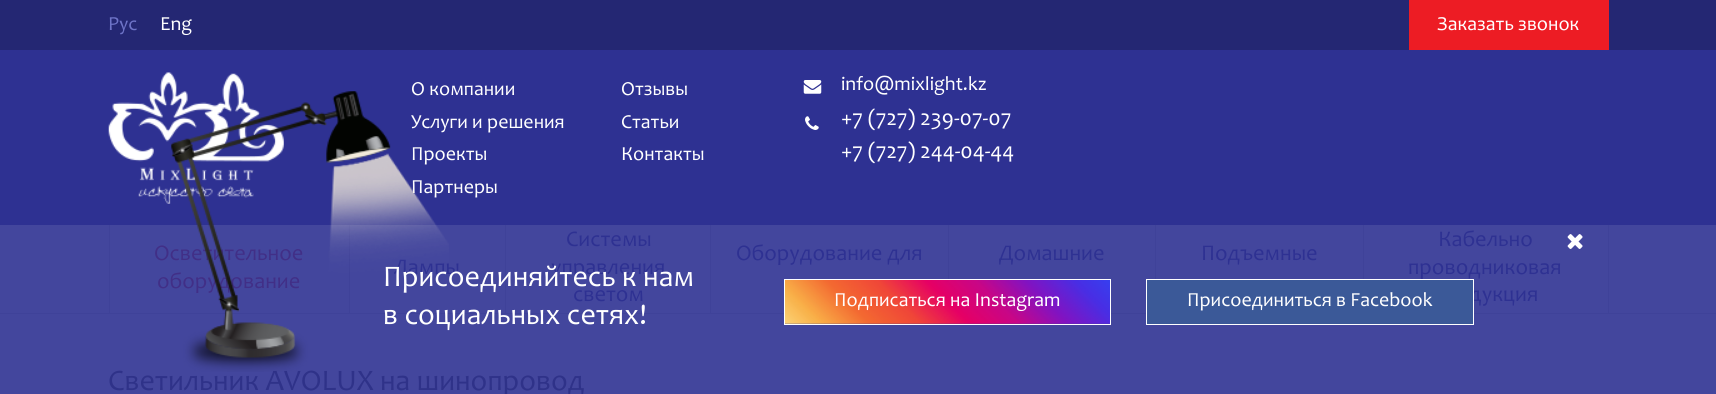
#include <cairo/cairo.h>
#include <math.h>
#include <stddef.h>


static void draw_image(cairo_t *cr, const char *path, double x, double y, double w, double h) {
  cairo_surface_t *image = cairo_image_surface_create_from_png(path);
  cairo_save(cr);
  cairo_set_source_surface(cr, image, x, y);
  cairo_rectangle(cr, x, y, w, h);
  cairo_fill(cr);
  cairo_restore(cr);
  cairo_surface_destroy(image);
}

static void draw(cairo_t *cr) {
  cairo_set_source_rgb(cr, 67 / 255.0, 70 / 255.0, 157 / 255.0);
  cairo_paint(cr);
  cairo_set_source_rgb(cr, 63 / 255.0, 66 / 255.0, 153 / 255.0);
  cairo_rectangle(cr, 0, 313, 1716, 1);
  cairo_fill(cr);
  cairo_set_source_rgb(cr, 36 / 255.0, 39 / 255.0, 115 / 255.0);
  cairo_rectangle(cr, 0, 0, 1716, 50);
  cairo_fill(cr);
  cairo_set_source_rgb(cr, 237 / 255.0, 28 / 255.0, 36 / 255.0);
  cairo_rectangle(cr, 1409, 0, 200, 50);
  cairo_fill(cr);
  cairo_set_source_rgb(cr, 46 / 255.0, 49 / 255.0, 146 / 255.0);
  cairo_rectangle(cr, 0, 50, 1716, 175);
  cairo_fill(cr);
  draw_image(cr, "images/1.png", 108, 72, 176, 132);
  draw_image(cr, "images/2.png", 803, 80, 19, 14);
  draw_image(cr, "images/3.png", 805, 116, 14, 14);
  cairo_set_source_rgb(cr, 63 / 255.0, 66 / 255.0, 153 / 255.0);
  cairo_rectangle(cr, 349, 225, 1, 88);
  cairo_fill(cr);
  cairo_rectangle(cr, 109, 225, 1, 88);
  cairo_fill(cr);
  cairo_rectangle(cr, 710, 225, 1, 88);
  cairo_fill(cr);
  cairo_rectangle(cr, 948, 225, 1, 54);
  cairo_fill(cr);
  cairo_rectangle(cr, 1155, 225, 1, 54);
  cairo_fill(cr);
  cairo_rectangle(cr, 1363, 225, 1, 54);
  cairo_fill(cr);
  cairo_rectangle(cr, 1608, 225, 1, 88);
  cairo_fill(cr);
  cairo_rectangle(cr, 505, 225, 1, 88);
  cairo_fill(cr);
  draw_image(cr, "images/5.png", 1567, 234, 16, 15);
  draw_image(cr, "images/6.png", 785, 280, 325, 44);
  cairo_rectangle(cr, 784.5, 279.5, 326, 45);
  cairo_set_source_rgb(cr, 1, 1, 1);
  cairo_set_line_width(cr, 1);
  cairo_stroke(cr);
  cairo_select_font_face(cr, "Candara", CAIRO_FONT_SLANT_NORMAL, CAIRO_FONT_WEIGHT_NORMAL);
  cairo_set_font_size(cr, 20);
  cairo_set_source_rgb(cr, 110 / 255.0, 116 / 255.0, 200 / 255.0);
  cairo_move_to(cr, 108, 30);
  cairo_show_text(cr, "Рус");
  cairo_set_source_rgb(cr, 1, 1, 1);
  cairo_move_to(cr, 160, 30);
  cairo_show_text(cr, "Eng");
  cairo_move_to(cr, 1437, 30);
  cairo_show_text(cr, "Заказать звонок");
  cairo_move_to(cr, 411, 95);
  cairo_show_text(cr, "О компании");
  cairo_move_to(cr, 621, 95);
  cairo_show_text(cr, "Отзывы");
  cairo_move_to(cr, 411, 128);
  cairo_show_text(cr, "Услуги и решения");
  cairo_move_to(cr, 621, 128);
  cairo_show_text(cr, "Статьи");
  cairo_move_to(cr, 411, 160);
  cairo_show_text(cr, "Проекты");
  cairo_move_to(cr, 621, 160);
  cairo_show_text(cr, "Контакты");
  cairo_move_to(cr, 411, 193);
  cairo_show_text(cr, "Партнеры");
  cairo_move_to(cr, 841, 90);
  cairo_show_text(cr, "info@mixlight.kz");
  cairo_set_font_size(cr, 22.5);
  cairo_move_to(cr, 841, 125);
  cairo_show_text(cr, "+7 (727) 239-07-07");
  cairo_move_to(cr, 841, 158);
  cairo_show_text(cr, "+7 (727) 244-04-44");
  cairo_set_source_rgb(cr, 65 / 255.0, 47 / 255.0, 135 / 255.0);
  cairo_move_to(cr, 154, 260);
  cairo_show_text(cr, "Осветительное");
  cairo_move_to(cr, 157, 288);
  cairo_show_text(cr, "оборудование");
  cairo_set_source_rgb(cr, 46 / 255.0, 49 / 255.0, 146 / 255.0);
  cairo_move_to(cr, 566, 246);
  cairo_show_text(cr, "Системы");
  cairo_move_to(cr, 551, 274);
  cairo_show_text(cr, "управления");
  cairo_move_to(cr, 573, 301);
  cairo_show_text(cr, "светом");
  cairo_move_to(cr, 736, 260);
  cairo_show_text(cr, "Оборудование для");
  cairo_move_to(cr, 999, 260);
  cairo_show_text(cr, "Домашние");
  cairo_move_to(cr, 1201, 260);
  cairo_show_text(cr, "Подъемные");
  cairo_move_to(cr, 1438, 246);
  cairo_show_text(cr, "Кабельно");
  cairo_move_to(cr, 1408, 274);
  cairo_show_text(cr, "проводниковая");
  cairo_move_to(cr, 1469, 301);
  cairo_show_text(cr, "дукция");
  cairo_move_to(cr, 394, 274);
  cairo_show_text(cr, "Лампы");
  cairo_set_font_size(cr, 30);
  cairo_set_source_rgb(cr, 47 / 255.0, 50 / 255.0, 137 / 255.0);
  cairo_move_to(cr, 108, 390);
  cairo_show_text(cr, "Светильник AVOLUX на шинопровод");
  cairo_set_source_rgb(cr, 1, 1, 1);
  cairo_move_to(cr, 383, 286);
  cairo_show_text(cr, "Присоединяйтесь к нам");
  cairo_move_to(cr, 383, 324);
  cairo_show_text(cr, "в социальных сетях!");
  draw_image(cr, "images/4.png", 171, 91, 278, 281);
  cairo_set_font_size(cr, 20);
  cairo_move_to(cr, 834, 306);
  cairo_show_text(cr, "Подписаться на Instagram");
  cairo_set_source_rgb(cr, 59 / 255.0, 89 / 255.0, 152 / 255.0);
  cairo_rectangle(cr, 1146.5, 279.5, 327, 45);
  cairo_fill_preserve(cr);
  cairo_set_source_rgb(cr, 1, 1, 1);
  cairo_stroke(cr);
  cairo_move_to(cr, 1187, 306);
  cairo_show_text(cr, "Присоединиться в Facebook");
}

int main(void) {
  cairo_surface_t *surface = cairo_image_surface_create(CAIRO_FORMAT_RGB24, 1716, 394);
  cairo_t *cr = cairo_create(surface);
  cairo_font_options_t *options = cairo_font_options_create();
  cairo_font_options_set_hint_metrics(options, CAIRO_HINT_METRICS_OFF);
  cairo_font_options_set_hint_style(options, CAIRO_HINT_STYLE_NONE);
  cairo_set_font_options(cr, options);
  cairo_set_miter_limit(cr, 4);
  draw(cr);
  cairo_surface_write_to_png(surface, "out.png");
  cairo_font_options_destroy(options);
  cairo_destroy(cr);
  cairo_surface_destroy(surface);
  return 0;
}
